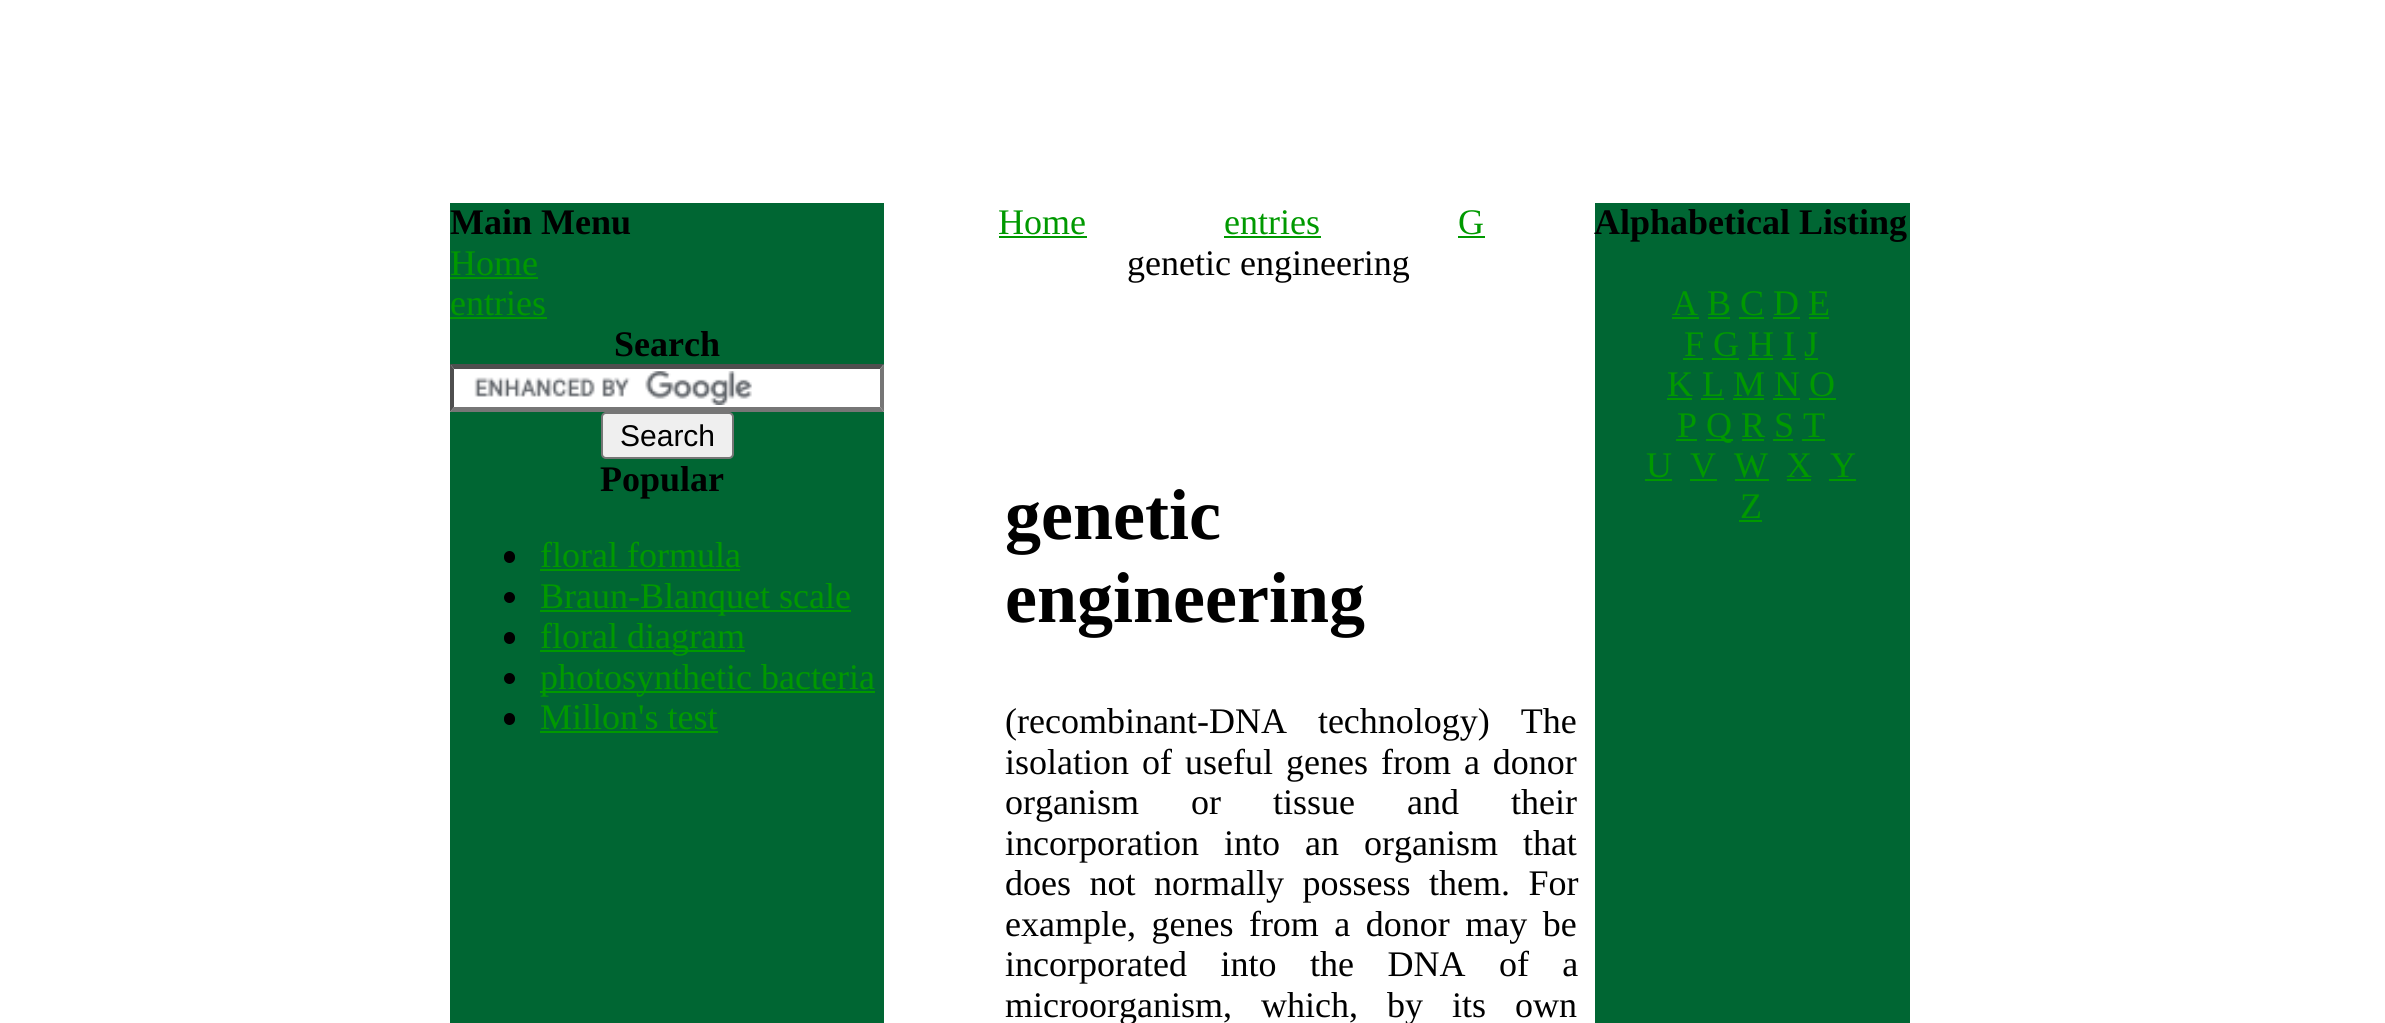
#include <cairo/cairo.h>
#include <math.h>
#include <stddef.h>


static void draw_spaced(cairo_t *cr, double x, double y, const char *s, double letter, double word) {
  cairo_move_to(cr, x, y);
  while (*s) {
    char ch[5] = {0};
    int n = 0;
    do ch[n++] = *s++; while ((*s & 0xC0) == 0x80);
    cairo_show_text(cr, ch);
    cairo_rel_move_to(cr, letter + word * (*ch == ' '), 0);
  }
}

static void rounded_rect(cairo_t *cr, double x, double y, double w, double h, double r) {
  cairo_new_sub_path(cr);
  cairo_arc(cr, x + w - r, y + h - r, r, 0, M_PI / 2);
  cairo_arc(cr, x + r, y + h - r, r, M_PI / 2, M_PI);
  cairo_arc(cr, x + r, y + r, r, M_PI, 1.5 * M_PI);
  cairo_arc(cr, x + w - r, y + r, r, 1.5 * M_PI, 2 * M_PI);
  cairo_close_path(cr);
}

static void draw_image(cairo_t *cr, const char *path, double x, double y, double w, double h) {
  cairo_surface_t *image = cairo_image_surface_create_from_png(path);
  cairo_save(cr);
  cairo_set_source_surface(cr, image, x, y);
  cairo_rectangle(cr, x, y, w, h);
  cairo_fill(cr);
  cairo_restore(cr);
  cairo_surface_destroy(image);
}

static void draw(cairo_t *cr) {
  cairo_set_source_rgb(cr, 1, 1, 1);
  cairo_paint(cr);
  cairo_set_source_rgb(cr, 0, 102 / 255.0, 51 / 255.0);
  cairo_rectangle(cr, 450, 203, 434, 820);
  cairo_fill(cr);
  cairo_set_source_rgb(cr, 0, 153 / 255.0, 0);
  cairo_rectangle(cr, 450, 277, 88, 2);
  cairo_fill(cr);
  cairo_rectangle(cr, 450, 317, 97, 2);
  cairo_fill(cr);
  cairo_set_source_rgb(cr, 1, 1, 1);
  cairo_rectangle(cr, 450, 365, 434, 47);
  cairo_fill(cr);
  draw_image(cr, "images/1.png", 474, 371, 278, 34);
  cairo_set_source_rgb(cr, 79 / 255.0, 79 / 255.0, 79 / 255.0);
  cairo_new_path(cr);
  cairo_move_to(cr, 450, 364);
  cairo_line_to(cr, 884, 364);
  cairo_line_to(cr, 880, 369);
  cairo_line_to(cr, 454, 369);
  cairo_close_path(cr);
  cairo_fill(cr);
  cairo_set_source_rgb(cr, 118 / 255.0, 118 / 255.0, 118 / 255.0);
  cairo_new_path(cr);
  cairo_move_to(cr, 884, 364);
  cairo_line_to(cr, 884, 412);
  cairo_line_to(cr, 880, 407);
  cairo_line_to(cr, 880, 369);
  cairo_close_path(cr);
  cairo_fill(cr);
  cairo_new_path(cr);
  cairo_move_to(cr, 884, 412);
  cairo_line_to(cr, 450, 412);
  cairo_line_to(cr, 454, 407);
  cairo_line_to(cr, 880, 407);
  cairo_close_path(cr);
  cairo_fill(cr);
  cairo_set_source_rgb(cr, 79 / 255.0, 79 / 255.0, 79 / 255.0);
  cairo_new_path(cr);
  cairo_move_to(cr, 450, 412);
  cairo_line_to(cr, 450, 364);
  cairo_line_to(cr, 454, 369);
  cairo_line_to(cr, 454, 407);
  cairo_close_path(cr);
  cairo_fill(cr);
  cairo_set_source_rgb(cr, 239 / 255.0, 239 / 255.0, 239 / 255.0);
  rounded_rect(cr, 602, 413, 131, 45, 4);
  cairo_fill_preserve(cr);
  cairo_set_source_rgb(cr, 118 / 255.0, 118 / 255.0, 118 / 255.0);
  cairo_stroke(cr);
  cairo_set_source_rgb(cr, 0, 0, 0);
  rounded_rect(cr, 504, 551, 11, 12, 5.5);
  cairo_fill(cr);
  cairo_set_source_rgb(cr, 0, 153 / 255.0, 0);
  cairo_rectangle(cr, 540, 569, 200, 2);
  cairo_fill(cr);
  cairo_set_source_rgb(cr, 0, 0, 0);
  cairo_arc(cr, 509.5, 597.5, 5.5, 0, 2 * M_PI);
  cairo_fill(cr);
  cairo_set_source_rgb(cr, 0, 153 / 255.0, 0);
  cairo_rectangle(cr, 540, 610, 311, 2);
  cairo_fill(cr);
  cairo_set_source_rgb(cr, 0, 0, 0);
  rounded_rect(cr, 504, 632, 11, 12, 5.5);
  cairo_fill(cr);
  cairo_set_source_rgb(cr, 0, 153 / 255.0, 0);
  cairo_rectangle(cr, 540, 650, 205, 2);
  cairo_fill(cr);
  cairo_set_source_rgb(cr, 0, 0, 0);
  cairo_arc(cr, 509.5, 678.5, 5.5, 0, 2 * M_PI);
  cairo_fill(cr);
  cairo_set_source_rgb(cr, 0, 153 / 255.0, 0);
  cairo_rectangle(cr, 540, 691, 335, 2);
  cairo_fill(cr);
  cairo_set_source_rgb(cr, 0, 0, 0);
  rounded_rect(cr, 504, 713, 11, 12, 5.5);
  cairo_fill(cr);
  cairo_set_source_rgb(cr, 0, 153 / 255.0, 0);
  cairo_rectangle(cr, 540, 731, 178, 2);
  cairo_fill(cr);
  cairo_rectangle(cr, 999, 236, 88, 2);
  cairo_fill(cr);
  cairo_rectangle(cr, 1224, 236, 97, 2);
  cairo_fill(cr);
  cairo_rectangle(cr, 1458, 236, 27, 2);
  cairo_fill(cr);
  cairo_set_source_rgb(cr, 0, 102 / 255.0, 51 / 255.0);
  cairo_rectangle(cr, 1595, 203, 315, 820);
  cairo_fill(cr);
  cairo_set_source_rgb(cr, 0, 153 / 255.0, 0);
  cairo_rectangle(cr, 1672, 317, 27, 2);
  cairo_fill(cr);
  cairo_rectangle(cr, 1708, 317, 22, 2);
  cairo_fill(cr);
  cairo_rectangle(cr, 1739, 317, 25, 2);
  cairo_fill(cr);
  cairo_rectangle(cr, 1773, 317, 27, 2);
  cairo_fill(cr);
  cairo_rectangle(cr, 1809, 317, 20, 2);
  cairo_fill(cr);
  cairo_rectangle(cr, 1683, 358, 20, 2);
  cairo_fill(cr);
  cairo_rectangle(cr, 1712, 358, 27, 2);
  cairo_fill(cr);
  cairo_rectangle(cr, 1748, 358, 25, 2);
  cairo_fill(cr);
  cairo_rectangle(cr, 1782, 358, 14, 2);
  cairo_fill(cr);
  cairo_rectangle(cr, 1805, 358, 13, 2);
  cairo_fill(cr);
  cairo_rectangle(cr, 1667, 398, 25, 2);
  cairo_fill(cr);
  cairo_rectangle(cr, 1701, 398, 23, 2);
  cairo_fill(cr);
  cairo_rectangle(cr, 1733, 398, 31, 2);
  cairo_fill(cr);
  cairo_rectangle(cr, 1773, 398, 27, 2);
  cairo_fill(cr);
  cairo_rectangle(cr, 1809, 398, 27, 2);
  cairo_fill(cr);
  cairo_rectangle(cr, 1676, 439, 21, 2);
  cairo_fill(cr);
  cairo_rectangle(cr, 1706, 439, 27, 2);
  cairo_fill(cr);
  cairo_rectangle(cr, 1742, 439, 22, 2);
  cairo_fill(cr);
  cairo_rectangle(cr, 1773, 439, 20, 2);
  cairo_fill(cr);
  cairo_rectangle(cr, 1802, 439, 23, 2);
  cairo_fill(cr);
  cairo_rectangle(cr, 1645, 479, 27, 2);
  cairo_fill(cr);
  cairo_rectangle(cr, 1690, 479, 27, 2);
  cairo_fill(cr);
  cairo_rectangle(cr, 1735, 479, 34, 2);
  cairo_fill(cr);
  cairo_rectangle(cr, 1787, 479, 24, 2);
  cairo_fill(cr);
  cairo_rectangle(cr, 1829, 479, 27, 2);
  cairo_fill(cr);
  cairo_rectangle(cr, 1739, 520, 23, 2);
  cairo_fill(cr);
  cairo_select_font_face(cr, "Liberation Serif", CAIRO_FONT_SLANT_NORMAL, CAIRO_FONT_WEIGHT_BOLD);
  cairo_set_font_size(cr, 36);
  cairo_set_source_rgb(cr, 0, 0, 0);
  cairo_move_to(cr, 450, 234);
  cairo_show_text(cr, "Main Menu");
  cairo_select_font_face(cr, "Liberation Serif", CAIRO_FONT_SLANT_NORMAL, CAIRO_FONT_WEIGHT_NORMAL);
  cairo_set_source_rgb(cr, 0, 153 / 255.0, 0);
  cairo_move_to(cr, 450, 275);
  cairo_show_text(cr, "Home");
  cairo_move_to(cr, 450, 315);
  cairo_show_text(cr, "entries");
  cairo_select_font_face(cr, "Liberation Serif", CAIRO_FONT_SLANT_NORMAL, CAIRO_FONT_WEIGHT_BOLD);
  cairo_set_source_rgb(cr, 0, 0, 0);
  cairo_move_to(cr, 614, 356);
  cairo_show_text(cr, "Search");
  cairo_select_font_face(cr, "Liberation Sans", CAIRO_FONT_SLANT_NORMAL, CAIRO_FONT_WEIGHT_NORMAL);
  cairo_set_font_size(cr, 30);
  cairo_move_to(cr, 620, 446);
  cairo_show_text(cr, "Search");
  cairo_select_font_face(cr, "Liberation Serif", CAIRO_FONT_SLANT_NORMAL, CAIRO_FONT_WEIGHT_BOLD);
  cairo_set_font_size(cr, 36);
  cairo_move_to(cr, 600, 491);
  cairo_show_text(cr, "Popular");
  cairo_select_font_face(cr, "Liberation Serif", CAIRO_FONT_SLANT_NORMAL, CAIRO_FONT_WEIGHT_NORMAL);
  cairo_set_source_rgb(cr, 0, 153 / 255.0, 0);
  cairo_move_to(cr, 540, 567);
  cairo_show_text(cr, "floral formula");
  cairo_move_to(cr, 540, 608);
  cairo_show_text(cr, "Braun-Blanquet scale");
  cairo_move_to(cr, 540, 648);
  cairo_show_text(cr, "floral diagram");
  cairo_move_to(cr, 540, 689);
  cairo_show_text(cr, "photosynthetic bacteria");
  cairo_move_to(cr, 540, 729);
  cairo_show_text(cr, "Millon's test");
  cairo_move_to(cr, 998, 234);
  cairo_show_text(cr, "Home");
  cairo_move_to(cr, 1224, 234);
  cairo_show_text(cr, "entries");
  cairo_move_to(cr, 1458, 234);
  cairo_show_text(cr, "G");
  cairo_set_source_rgb(cr, 0, 0, 0);
  cairo_move_to(cr, 1127, 275);
  cairo_show_text(cr, "genetic engineering");
  cairo_select_font_face(cr, "Liberation Serif", CAIRO_FONT_SLANT_NORMAL, CAIRO_FONT_WEIGHT_BOLD);
  cairo_set_font_size(cr, 72);
  cairo_move_to(cr, 1005, 539);
  cairo_show_text(cr, "genetic");
  cairo_move_to(cr, 1005, 622);
  cairo_show_text(cr, "engineering");
  cairo_select_font_face(cr, "Liberation Serif", CAIRO_FONT_SLANT_NORMAL, CAIRO_FONT_WEIGHT_NORMAL);
  cairo_set_font_size(cr, 36);
  draw_spaced(cr, 1005, 733, "(recombinant-DNA technology) The", 0, 22);
  draw_spaced(cr, 1005, 774, "isolation of useful genes from a donor", 0, 4);
  draw_spaced(cr, 1005, 814, "organism or tissue and their", 0, 43);
  draw_spaced(cr, 1005, 855, "incorporation into an organism that", 0, 16);
  draw_spaced(cr, 1005, 895, "does not normally possess them. For", 0, 9.5);
  draw_spaced(cr, 1005, 936, "example, genes from a donor may be", 0, 6.5);
  draw_spaced(cr, 1005, 976, "incorporated into the DNA of a", 0, 24.5);
  draw_spaced(cr, 1005, 1017, "microorganism, which, by its own", 0, 20);
  cairo_select_font_face(cr, "Liberation Serif", CAIRO_FONT_SLANT_NORMAL, CAIRO_FONT_WEIGHT_BOLD);
  cairo_move_to(cr, 1594, 234);
  cairo_show_text(cr, "Alphabetical Listing");
  cairo_select_font_face(cr, "Liberation Serif", CAIRO_FONT_SLANT_NORMAL, CAIRO_FONT_WEIGHT_NORMAL);
  cairo_set_source_rgb(cr, 0, 153 / 255.0, 0);
  cairo_move_to(cr, 1672, 315);
  cairo_show_text(cr, "A B C D E");
  cairo_move_to(cr, 1684, 356);
  cairo_show_text(cr, "F G H I J");
  cairo_move_to(cr, 1667, 396);
  cairo_show_text(cr, "K L M N O");
  cairo_move_to(cr, 1677, 437);
  cairo_show_text(cr, "P");
  cairo_move_to(cr, 1706, 437);
  cairo_show_text(cr, "Q R S T");
  cairo_move_to(cr, 1646, 477);
  cairo_show_text(cr, "U");
  cairo_move_to(cr, 1690, 477);
  cairo_show_text(cr, "V");
  cairo_move_to(cr, 1734, 477);
  cairo_show_text(cr, "W");
  cairo_move_to(cr, 1786, 477);
  cairo_show_text(cr, "X");
  cairo_move_to(cr, 1830, 477);
  cairo_show_text(cr, "Y");
  cairo_move_to(cr, 1740, 518);
  cairo_show_text(cr, "Z");
}

int main(void) {
  cairo_surface_t *surface = cairo_image_surface_create(CAIRO_FORMAT_RGB24, 2385, 1023);
  cairo_t *cr = cairo_create(surface);
  cairo_font_options_t *options = cairo_font_options_create();
  cairo_font_options_set_hint_metrics(options, CAIRO_HINT_METRICS_OFF);
  cairo_font_options_set_hint_style(options, CAIRO_HINT_STYLE_NONE);
  cairo_set_font_options(cr, options);
  cairo_set_miter_limit(cr, 4);
  draw(cr);
  cairo_surface_write_to_png(surface, "out.png");
  cairo_font_options_destroy(options);
  cairo_destroy(cr);
  cairo_surface_destroy(surface);
  return 0;
}
